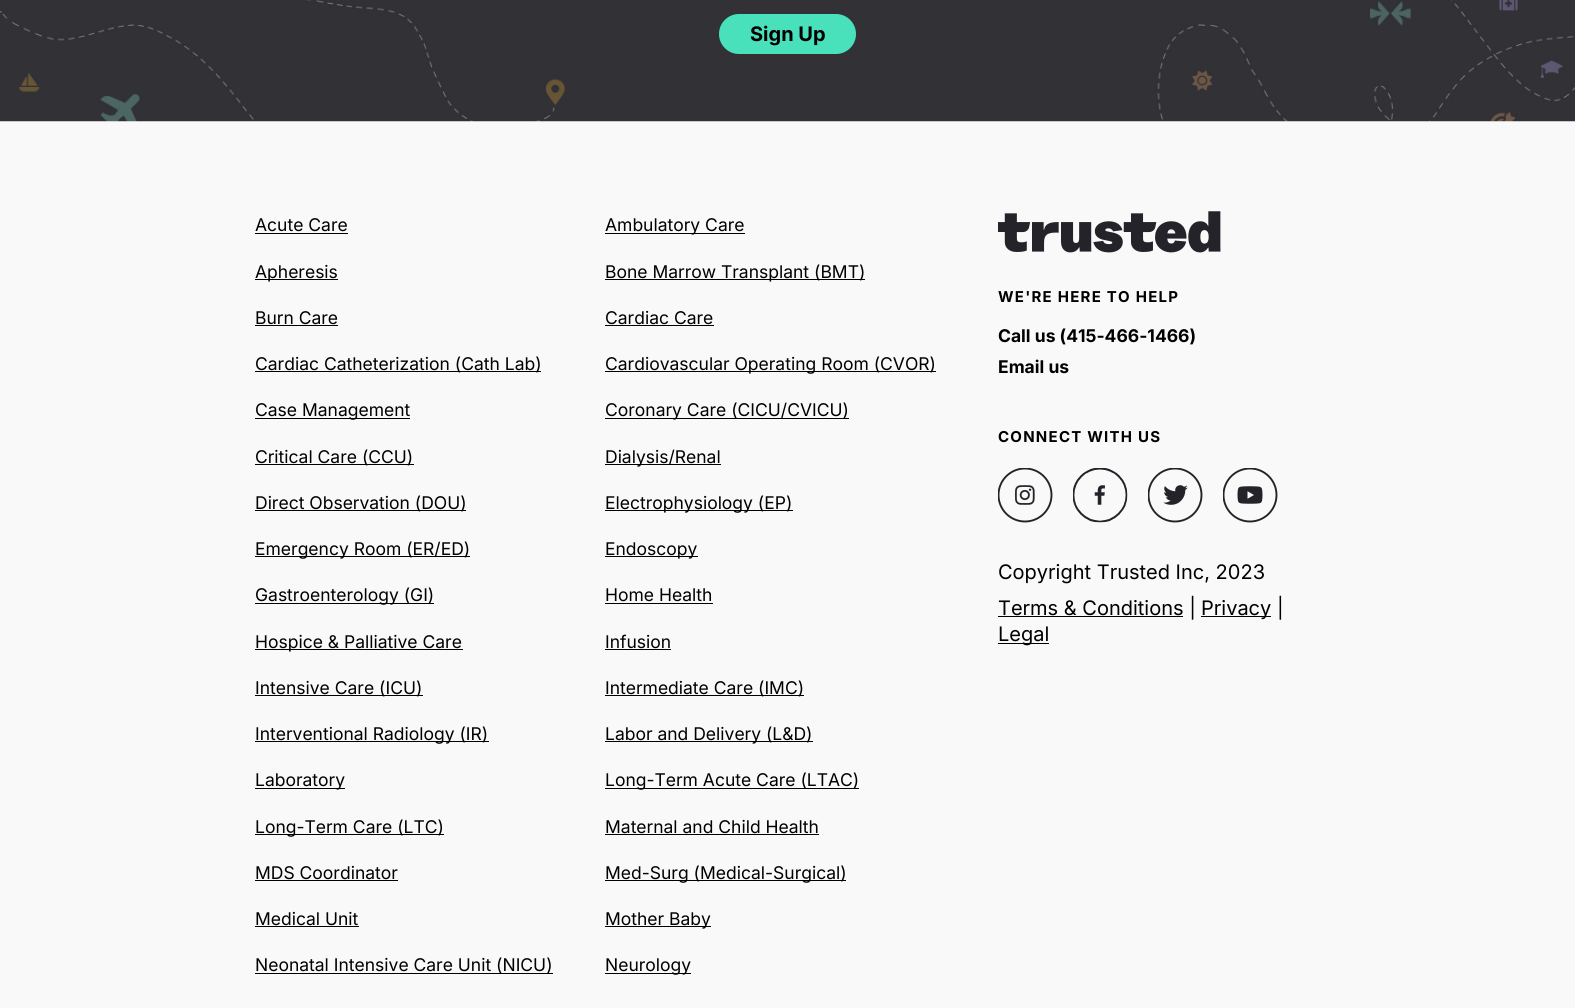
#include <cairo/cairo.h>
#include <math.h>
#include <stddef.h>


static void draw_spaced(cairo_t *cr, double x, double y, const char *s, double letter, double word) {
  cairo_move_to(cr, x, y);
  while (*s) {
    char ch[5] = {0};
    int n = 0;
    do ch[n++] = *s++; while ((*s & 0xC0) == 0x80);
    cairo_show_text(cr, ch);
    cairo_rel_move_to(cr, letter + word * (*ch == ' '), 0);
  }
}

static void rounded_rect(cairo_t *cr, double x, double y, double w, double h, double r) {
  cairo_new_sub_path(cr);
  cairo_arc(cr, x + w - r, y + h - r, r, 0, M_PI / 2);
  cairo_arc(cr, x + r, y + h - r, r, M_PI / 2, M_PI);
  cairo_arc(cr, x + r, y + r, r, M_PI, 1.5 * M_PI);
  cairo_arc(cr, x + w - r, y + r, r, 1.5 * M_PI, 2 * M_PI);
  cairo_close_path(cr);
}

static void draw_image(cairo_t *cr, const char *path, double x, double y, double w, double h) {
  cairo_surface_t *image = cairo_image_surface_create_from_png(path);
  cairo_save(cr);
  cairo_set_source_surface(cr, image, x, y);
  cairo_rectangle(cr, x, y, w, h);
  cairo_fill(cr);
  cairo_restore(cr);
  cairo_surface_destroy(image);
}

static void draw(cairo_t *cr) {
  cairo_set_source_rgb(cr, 249 / 255.0, 249 / 255.0, 249 / 255.0);
  cairo_paint(cr);
  draw_image(cr, "images/1.png", 0, 0, 1575, 122);
  cairo_set_source_rgb(cr, 73 / 255.0, 225 / 255.0, 187 / 255.0);
  rounded_rect(cr, 719, 14, 137, 40, 20);
  cairo_fill(cr);
  cairo_set_source_rgb(cr, 0, 0, 0);
  cairo_rectangle(cr, 255, 233, 93, 1);
  cairo_fill(cr);
  cairo_rectangle(cr, 605, 233, 140, 1);
  cairo_fill(cr);
  cairo_rectangle(cr, 255, 279, 83, 1);
  cairo_fill(cr);
  cairo_rectangle(cr, 605, 279, 260, 1);
  cairo_fill(cr);
  cairo_rectangle(cr, 255, 325, 83, 1);
  cairo_fill(cr);
  cairo_rectangle(cr, 605, 325, 109, 1);
  cairo_fill(cr);
  cairo_rectangle(cr, 255, 371, 286, 1);
  cairo_fill(cr);
  cairo_rectangle(cr, 605, 371, 331, 1);
  cairo_fill(cr);
  cairo_rectangle(cr, 255, 418, 155, 1);
  cairo_fill(cr);
  cairo_rectangle(cr, 605, 418, 244, 1);
  cairo_fill(cr);
  cairo_rectangle(cr, 255, 464, 159, 1);
  cairo_fill(cr);
  cairo_rectangle(cr, 605, 464, 116, 1);
  cairo_fill(cr);
  cairo_rectangle(cr, 255, 510, 211, 1);
  cairo_fill(cr);
  cairo_rectangle(cr, 605, 510, 188, 1);
  cairo_fill(cr);
  cairo_rectangle(cr, 255, 556, 215, 1);
  cairo_fill(cr);
  cairo_rectangle(cr, 605, 556, 93, 1);
  cairo_fill(cr);
  cairo_rectangle(cr, 255, 603, 179, 1);
  cairo_fill(cr);
  cairo_rectangle(cr, 605, 603, 108, 1);
  cairo_fill(cr);
  cairo_rectangle(cr, 255, 649, 208, 1);
  cairo_fill(cr);
  cairo_rectangle(cr, 605, 649, 66, 1);
  cairo_fill(cr);
  cairo_rectangle(cr, 255, 695, 168, 1);
  cairo_fill(cr);
  cairo_rectangle(cr, 605, 695, 199, 1);
  cairo_fill(cr);
  cairo_rectangle(cr, 255, 741, 234, 1);
  cairo_fill(cr);
  cairo_rectangle(cr, 605, 741, 208, 1);
  cairo_fill(cr);
  cairo_rectangle(cr, 255, 788, 90, 1);
  cairo_fill(cr);
  cairo_rectangle(cr, 605, 788, 254, 1);
  cairo_fill(cr);
  cairo_rectangle(cr, 255, 834, 189, 1);
  cairo_fill(cr);
  cairo_rectangle(cr, 605, 834, 214, 1);
  cairo_fill(cr);
  cairo_rectangle(cr, 255, 880, 143, 1);
  cairo_fill(cr);
  cairo_rectangle(cr, 605, 880, 241, 1);
  cairo_fill(cr);
  cairo_rectangle(cr, 255, 926, 104, 1);
  cairo_fill(cr);
  cairo_rectangle(cr, 605, 926, 106, 1);
  cairo_fill(cr);
  cairo_rectangle(cr, 255, 973, 298, 1);
  cairo_fill(cr);
  cairo_rectangle(cr, 605, 973, 86, 1);
  cairo_fill(cr);
  draw_image(cr, "images/2.png", 998, 211, 223, 42);
  draw_image(cr, "images/3.png", 998, 468, 55, 55);
  draw_image(cr, "images/4.png", 1073, 468, 55, 55);
  draw_image(cr, "images/5.png", 1148, 468, 55, 55);
  draw_image(cr, "images/6.png", 1223, 468, 55, 55);
  cairo_rectangle(cr, 998, 616, 185, 1);
  cairo_fill(cr);
  cairo_rectangle(cr, 1201, 616, 70, 1);
  cairo_fill(cr);
  cairo_rectangle(cr, 998, 643, 51, 1);
  cairo_fill(cr);
  cairo_select_font_face(cr, "Inter", CAIRO_FONT_SLANT_NORMAL, CAIRO_FONT_WEIGHT_BOLD);
  cairo_set_font_size(cr, 20);
  cairo_move_to(cr, 750, 41);
  cairo_show_text(cr, "Sign Up");
  cairo_select_font_face(cr, "Inter", CAIRO_FONT_SLANT_NORMAL, CAIRO_FONT_WEIGHT_NORMAL);
  cairo_set_font_size(cr, 17.5);
  cairo_move_to(cr, 255, 231);
  cairo_show_text(cr, "Acute Care");
  cairo_move_to(cr, 605, 231);
  cairo_show_text(cr, "Ambulatory Care");
  cairo_move_to(cr, 255, 278);
  cairo_show_text(cr, "Apheresis");
  cairo_move_to(cr, 605, 278);
  cairo_show_text(cr, "Bone Marrow Transplant (BMT)");
  cairo_move_to(cr, 255, 324);
  cairo_show_text(cr, "Burn Care");
  cairo_move_to(cr, 605, 324);
  cairo_show_text(cr, "Cardiac Care");
  cairo_move_to(cr, 255, 370);
  cairo_show_text(cr, "Cardiac Catheterization (Cath Lab)");
  cairo_move_to(cr, 605, 370);
  cairo_show_text(cr, "Cardiovascular Operating Room (CVOR)");
  cairo_move_to(cr, 255, 416);
  cairo_show_text(cr, "Case Management");
  cairo_move_to(cr, 605, 416);
  cairo_show_text(cr, "Coronary Care (CICU/CVICU)");
  cairo_move_to(cr, 255, 463);
  cairo_show_text(cr, "Critical Care (CCU)");
  cairo_move_to(cr, 605, 463);
  cairo_show_text(cr, "Dialysis/Renal");
  cairo_move_to(cr, 255, 509);
  cairo_show_text(cr, "Direct Observation (DOU)");
  cairo_move_to(cr, 605, 509);
  cairo_show_text(cr, "Electrophysiology (EP)");
  cairo_move_to(cr, 255, 555);
  cairo_show_text(cr, "Emergency Room (ER/ED)");
  cairo_move_to(cr, 605, 555);
  cairo_show_text(cr, "Endoscopy");
  cairo_move_to(cr, 255, 601);
  cairo_show_text(cr, "Gastroenterology (GI)");
  cairo_move_to(cr, 605, 601);
  cairo_show_text(cr, "Home Health");
  cairo_move_to(cr, 255, 648);
  cairo_show_text(cr, "Hospice & Palliative Care");
  cairo_move_to(cr, 605, 648);
  cairo_show_text(cr, "Infusion");
  cairo_move_to(cr, 255, 694);
  cairo_show_text(cr, "Intensive Care (ICU)");
  cairo_move_to(cr, 605, 694);
  cairo_show_text(cr, "Intermediate Care (IMC)");
  cairo_move_to(cr, 255, 740);
  cairo_show_text(cr, "Interventional Radiology (IR)");
  cairo_move_to(cr, 605, 740);
  cairo_show_text(cr, "Labor and Delivery (L&D)");
  cairo_move_to(cr, 255, 786);
  cairo_show_text(cr, "Laboratory");
  cairo_move_to(cr, 605, 786);
  cairo_show_text(cr, "Long-Term Acute Care (LTAC)");
  cairo_move_to(cr, 255, 833);
  cairo_show_text(cr, "Long-Term Care (LTC)");
  cairo_move_to(cr, 605, 833);
  cairo_show_text(cr, "Maternal and Child Health");
  cairo_move_to(cr, 255, 879);
  cairo_show_text(cr, "MDS Coordinator");
  cairo_move_to(cr, 605, 879);
  cairo_show_text(cr, "Med-Surg (Medical-Surgical)");
  cairo_move_to(cr, 255, 925);
  cairo_show_text(cr, "Medical Unit");
  cairo_move_to(cr, 605, 925);
  cairo_show_text(cr, "Mother Baby");
  cairo_move_to(cr, 255, 971);
  cairo_show_text(cr, "Neonatal Intensive Care Unit (NICU)");
  cairo_move_to(cr, 605, 971);
  cairo_show_text(cr, "Neurology");
  cairo_select_font_face(cr, "Inter", CAIRO_FONT_SLANT_NORMAL, CAIRO_FONT_WEIGHT_BOLD);
  cairo_set_font_size(cr, 15);
  draw_spaced(cr, 998, 302, "WE'RE HERE TO HELP", 1.25, 0);
  cairo_set_font_size(cr, 17.5);
  cairo_move_to(cr, 998, 342);
  cairo_show_text(cr, "Call us (415-466-1466)");
  cairo_move_to(cr, 998, 373);
  cairo_show_text(cr, "Email us");
  cairo_set_font_size(cr, 15);
  draw_spaced(cr, 998, 442, "CONNECT WITH US", 1.25, 0);
  cairo_select_font_face(cr, "Inter", CAIRO_FONT_SLANT_NORMAL, CAIRO_FONT_WEIGHT_NORMAL);
  cairo_set_font_size(cr, 20);
  cairo_move_to(cr, 998, 579);
  cairo_show_text(cr, "Copyright Trusted Inc, 2023");
  cairo_move_to(cr, 998, 615);
  cairo_show_text(cr, "Terms & Conditions |");
  cairo_move_to(cr, 1201, 615);
  cairo_show_text(cr, "Privacy |");
  cairo_move_to(cr, 998, 641);
  cairo_show_text(cr, "Legal");
}

int main(void) {
  cairo_surface_t *surface = cairo_image_surface_create(CAIRO_FORMAT_RGB24, 1575, 1008);
  cairo_t *cr = cairo_create(surface);
  cairo_font_options_t *options = cairo_font_options_create();
  cairo_font_options_set_hint_metrics(options, CAIRO_HINT_METRICS_OFF);
  cairo_font_options_set_hint_style(options, CAIRO_HINT_STYLE_NONE);
  cairo_set_font_options(cr, options);
  cairo_set_miter_limit(cr, 4);
  draw(cr);
  cairo_surface_write_to_png(surface, "out.png");
  cairo_font_options_destroy(options);
  cairo_destroy(cr);
  cairo_surface_destroy(surface);
  return 0;
}
